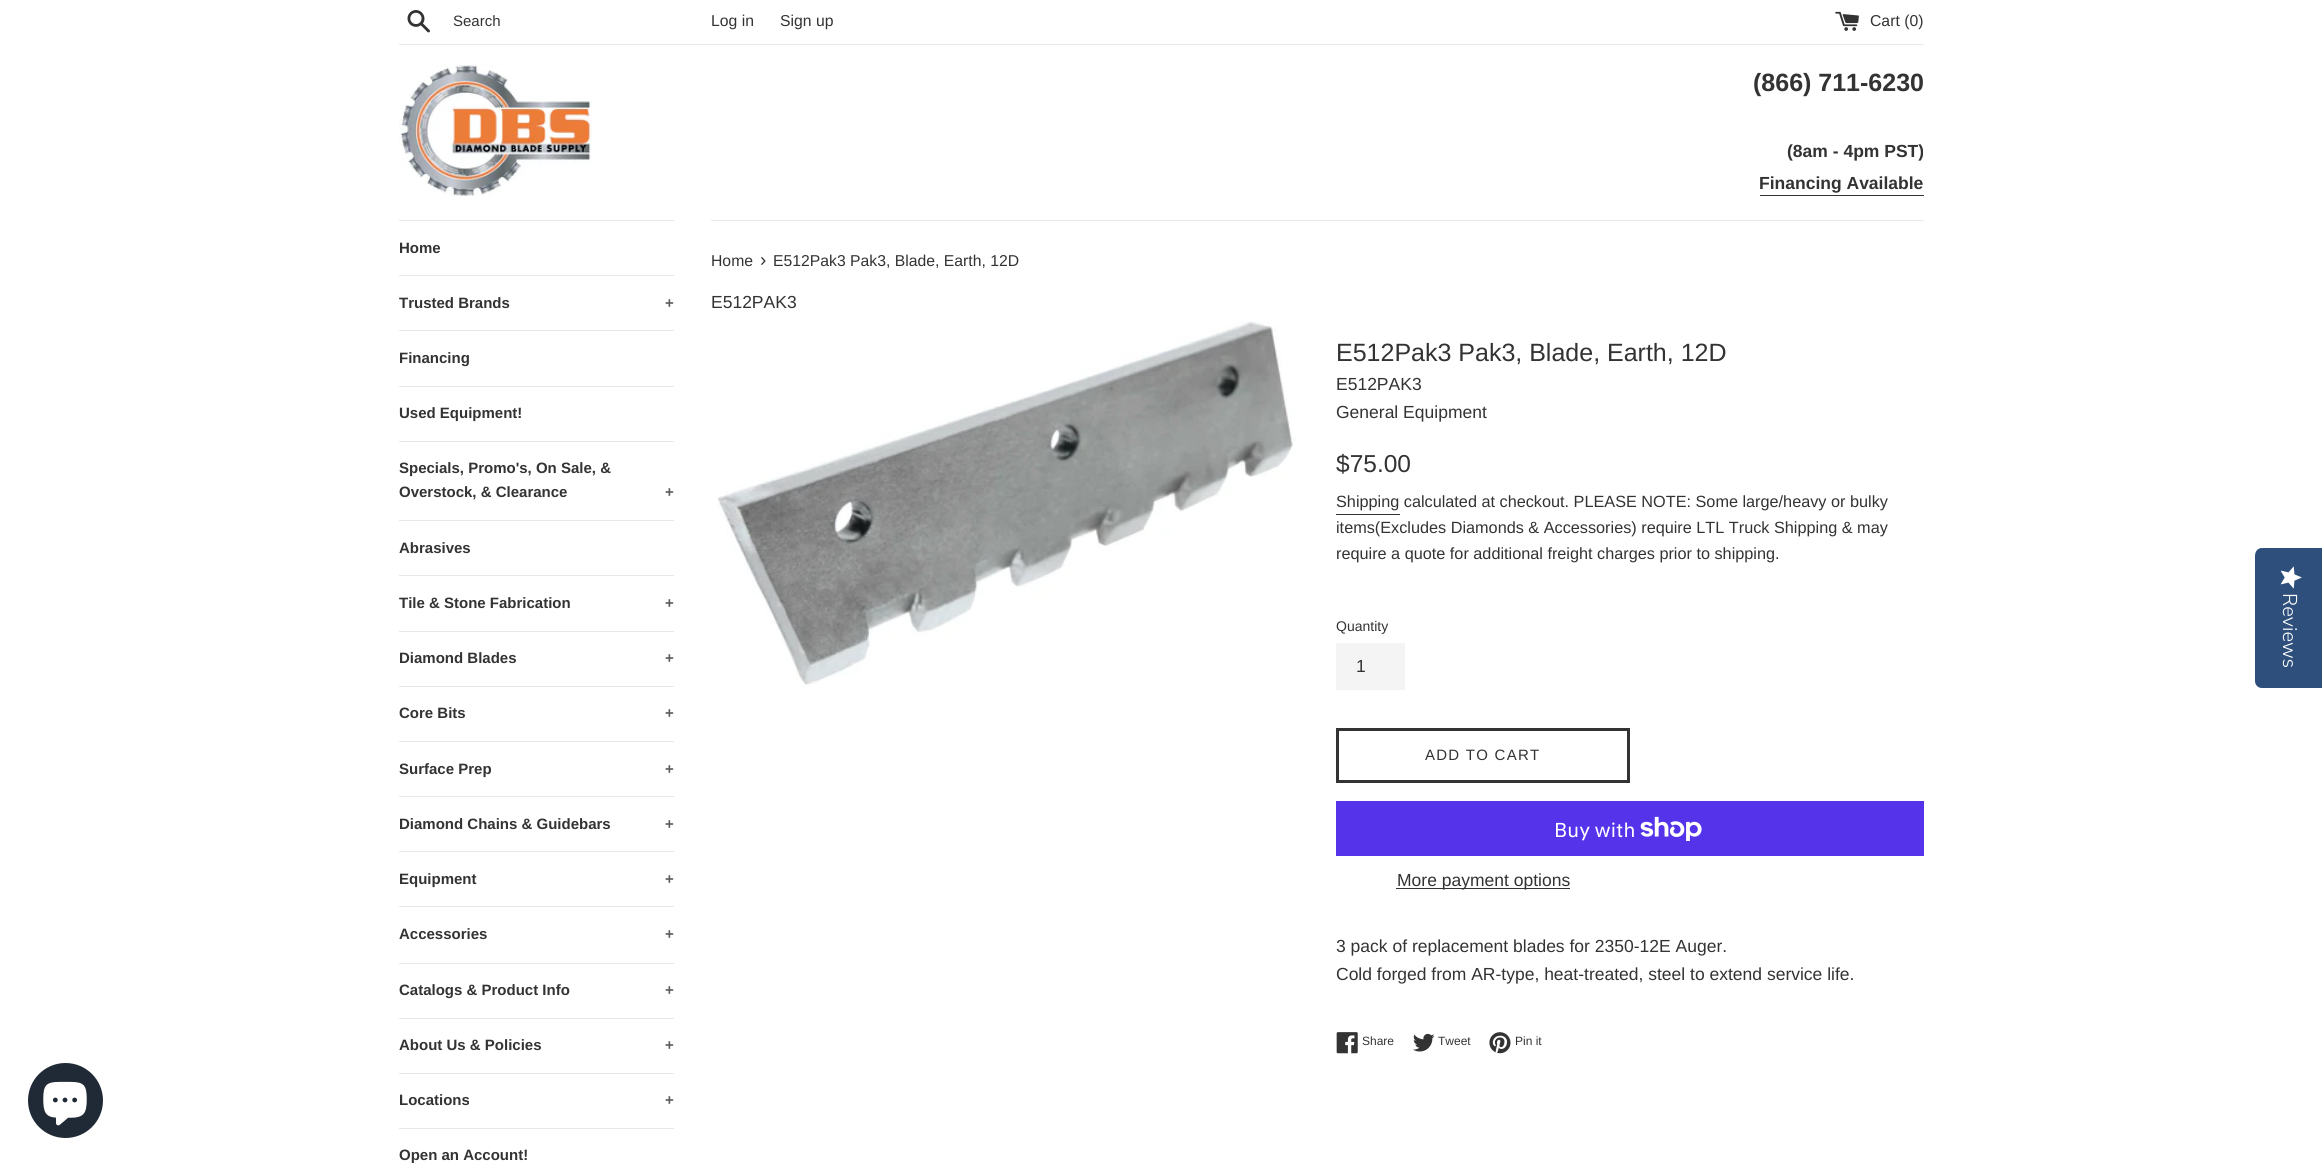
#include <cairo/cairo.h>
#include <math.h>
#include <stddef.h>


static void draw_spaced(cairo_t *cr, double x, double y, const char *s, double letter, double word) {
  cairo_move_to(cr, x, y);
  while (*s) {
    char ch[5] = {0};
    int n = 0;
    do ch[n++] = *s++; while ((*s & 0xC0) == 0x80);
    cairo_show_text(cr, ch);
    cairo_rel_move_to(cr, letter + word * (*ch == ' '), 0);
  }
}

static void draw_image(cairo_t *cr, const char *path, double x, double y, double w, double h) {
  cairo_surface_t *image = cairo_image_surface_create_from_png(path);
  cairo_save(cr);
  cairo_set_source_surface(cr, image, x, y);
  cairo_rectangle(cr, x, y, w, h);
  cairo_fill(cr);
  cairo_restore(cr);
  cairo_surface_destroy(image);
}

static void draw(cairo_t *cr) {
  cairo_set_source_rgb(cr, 1, 1, 1);
  cairo_paint(cr);
  draw_image(cr, "images/1.png", 407, 10, 23, 23);
  draw_image(cr, "images/2.png", 1835, 11, 24, 20);
  cairo_set_source_rgb(cr, 232 / 255.0, 232 / 255.0, 232 / 255.0);
  cairo_rectangle(cr, 399, 44, 1525, 1);
  cairo_fill(cr);
  draw_image(cr, "images/3.png", 399, 64, 193, 133);
  cairo_set_source_rgb(cr, 51 / 255.0, 51 / 255.0, 51 / 255.0);
  cairo_rectangle(cr, 1760, 195, 164, 1);
  cairo_fill(cr);
  cairo_set_source_rgb(cr, 232 / 255.0, 232 / 255.0, 232 / 255.0);
  cairo_rectangle(cr, 399, 220, 275, 1);
  cairo_fill(cr);
  cairo_rectangle(cr, 399, 275, 275, 1);
  cairo_fill(cr);
  cairo_rectangle(cr, 399, 330, 275, 1);
  cairo_fill(cr);
  cairo_rectangle(cr, 399, 386, 275, 1);
  cairo_fill(cr);
  cairo_rectangle(cr, 399, 441, 275, 1);
  cairo_fill(cr);
  cairo_rectangle(cr, 399, 520, 275, 1);
  cairo_fill(cr);
  cairo_rectangle(cr, 399, 575, 275, 1);
  cairo_fill(cr);
  cairo_rectangle(cr, 399, 631, 275, 1);
  cairo_fill(cr);
  cairo_rectangle(cr, 399, 686, 275, 1);
  cairo_fill(cr);
  cairo_rectangle(cr, 399, 741, 275, 1);
  cairo_fill(cr);
  cairo_rectangle(cr, 399, 796, 275, 1);
  cairo_fill(cr);
  cairo_rectangle(cr, 399, 851, 275, 1);
  cairo_fill(cr);
  cairo_rectangle(cr, 399, 906, 275, 1);
  cairo_fill(cr);
  cairo_rectangle(cr, 399, 963, 275, 1);
  cairo_fill(cr);
  cairo_rectangle(cr, 399, 1018, 275, 1);
  cairo_fill(cr);
  cairo_rectangle(cr, 399, 1073, 275, 1);
  cairo_fill(cr);
  cairo_rectangle(cr, 399, 1128, 275, 1);
  cairo_fill(cr);
  cairo_rectangle(cr, 711, 220, 1213, 1);
  cairo_fill(cr);
  draw_image(cr, "images/4.png", 717, 321, 579, 366);
  cairo_set_source_rgb(cr, 51 / 255.0, 51 / 255.0, 51 / 255.0);
  cairo_rectangle(cr, 1336, 514, 64, 1);
  cairo_fill(cr);
  cairo_set_source_rgb(cr, 244 / 255.0, 244 / 255.0, 244 / 255.0);
  cairo_rectangle(cr, 1336, 643, 69, 47);
  cairo_fill(cr);
  cairo_rectangle(cr, 1337.5, 729.5, 291, 52);
  cairo_set_source_rgb(cr, 51 / 255.0, 51 / 255.0, 51 / 255.0);
  cairo_set_line_width(cr, 3);
  cairo_stroke(cr);
  cairo_set_source_rgb(cr, 84 / 255.0, 51 / 255.0, 235 / 255.0);
  cairo_rectangle(cr, 1336, 801, 588, 55);
  cairo_fill(cr);
  draw_image(cr, "images/5.png", 1640, 816, 62, 25);
  cairo_set_source_rgb(cr, 51 / 255.0, 51 / 255.0, 51 / 255.0);
  cairo_rectangle(cr, 1396, 888, 174, 1);
  cairo_fill(cr);
  draw_image(cr, "images/6.png", 1336, 1032, 22, 22);
  draw_image(cr, "images/7.png", 1413, 1033, 22, 19);
  draw_image(cr, "images/8.png", 1489, 1032, 22, 22);
  cairo_set_source_rgb(cr, 46 / 255.0, 79 / 255.0, 124 / 255.0);
  cairo_new_path(cr);
  cairo_move_to(cr, 2322, 548);
  cairo_line_to(cr, 2322, 688);
  cairo_line_to(cr, 2262, 688);
  cairo_curve_to(cr, 2258, 688, 2255, 685, 2255, 681);
  cairo_line_to(cr, 2255, 556);
  cairo_curve_to(cr, 2255, 551, 2258, 548, 2262, 548);
  cairo_close_path(cr);
  cairo_fill(cr);
  draw_image(cr, "images/9.png", 2280, 566, 22, 23);
  cairo_set_source_rgb(cr, 32 / 255.0, 42 / 255.0, 54 / 255.0);
  cairo_arc(cr, 65.5, 1100.5, 37.5, 0, 2 * M_PI);
  cairo_fill(cr);
  draw_image(cr, "images/10.png", 43, 1081, 44, 45);
  cairo_select_font_face(cr, "Liberation Sans", CAIRO_FONT_SLANT_NORMAL, CAIRO_FONT_WEIGHT_NORMAL);
  cairo_set_font_size(cr, 15);
  cairo_set_source_rgb(cr, 51 / 255.0, 51 / 255.0, 51 / 255.0);
  cairo_move_to(cr, 453, 26);
  cairo_show_text(cr, "Search");
  cairo_set_font_size(cr, 15.75);
  cairo_move_to(cr, 711, 26);
  cairo_show_text(cr, "Log in");
  cairo_move_to(cr, 780, 26);
  cairo_show_text(cr, "Sign up");
  cairo_move_to(cr, 1870, 26);
  cairo_show_text(cr, "Cart (0)");
  cairo_select_font_face(cr, "Arimo", CAIRO_FONT_SLANT_NORMAL, CAIRO_FONT_WEIGHT_BOLD);
  cairo_set_font_size(cr, 25);
  cairo_move_to(cr, 1753, 91);
  cairo_show_text(cr, "(866) 711-6230");
  cairo_select_font_face(cr, "Liberation Sans", CAIRO_FONT_SLANT_NORMAL, CAIRO_FONT_WEIGHT_BOLD);
  cairo_set_font_size(cr, 17.5);
  cairo_move_to(cr, 1787, 157);
  cairo_show_text(cr, "(8am - 4pm PST)");
  cairo_move_to(cr, 1759, 189);
  cairo_show_text(cr, "Financing Available");
  cairo_set_font_size(cr, 15);
  cairo_move_to(cr, 399, 253);
  cairo_show_text(cr, "Home");
  cairo_move_to(cr, 399, 308);
  cairo_show_text(cr, "Trusted Brands");
  cairo_set_source_rgb(cr, 92 / 255.0, 92 / 255.0, 92 / 255.0);
  cairo_move_to(cr, 665, 308);
  cairo_show_text(cr, "+");
  cairo_set_source_rgb(cr, 51 / 255.0, 51 / 255.0, 51 / 255.0);
  cairo_move_to(cr, 399, 363);
  cairo_show_text(cr, "Financing");
  cairo_move_to(cr, 399, 418);
  cairo_show_text(cr, "Used Equipment!");
  cairo_move_to(cr, 399, 473);
  cairo_show_text(cr, "Specials, Promo's, On Sale, &");
  cairo_move_to(cr, 399, 497);
  cairo_show_text(cr, "Overstock, & Clearance");
  cairo_set_source_rgb(cr, 92 / 255.0, 92 / 255.0, 92 / 255.0);
  cairo_move_to(cr, 665, 497);
  cairo_show_text(cr, "+");
  cairo_set_source_rgb(cr, 51 / 255.0, 51 / 255.0, 51 / 255.0);
  cairo_move_to(cr, 399, 553);
  cairo_show_text(cr, "Abrasives");
  cairo_move_to(cr, 399, 608);
  cairo_show_text(cr, "Tile & Stone Fabrication");
  cairo_set_source_rgb(cr, 92 / 255.0, 92 / 255.0, 92 / 255.0);
  cairo_move_to(cr, 665, 608);
  cairo_show_text(cr, "+");
  cairo_set_source_rgb(cr, 51 / 255.0, 51 / 255.0, 51 / 255.0);
  cairo_move_to(cr, 399, 663);
  cairo_show_text(cr, "Diamond Blades");
  cairo_set_source_rgb(cr, 92 / 255.0, 92 / 255.0, 92 / 255.0);
  cairo_move_to(cr, 665, 663);
  cairo_show_text(cr, "+");
  cairo_set_source_rgb(cr, 51 / 255.0, 51 / 255.0, 51 / 255.0);
  cairo_move_to(cr, 399, 718);
  cairo_show_text(cr, "Core Bits");
  cairo_set_source_rgb(cr, 92 / 255.0, 92 / 255.0, 92 / 255.0);
  cairo_move_to(cr, 665, 718);
  cairo_show_text(cr, "+");
  cairo_set_source_rgb(cr, 51 / 255.0, 51 / 255.0, 51 / 255.0);
  cairo_move_to(cr, 399, 774);
  cairo_show_text(cr, "Surface Prep");
  cairo_set_source_rgb(cr, 92 / 255.0, 92 / 255.0, 92 / 255.0);
  cairo_move_to(cr, 665, 774);
  cairo_show_text(cr, "+");
  cairo_set_source_rgb(cr, 51 / 255.0, 51 / 255.0, 51 / 255.0);
  cairo_move_to(cr, 399, 829);
  cairo_show_text(cr, "Diamond Chains & Guidebars");
  cairo_set_source_rgb(cr, 92 / 255.0, 92 / 255.0, 92 / 255.0);
  cairo_move_to(cr, 665, 829);
  cairo_show_text(cr, "+");
  cairo_set_source_rgb(cr, 51 / 255.0, 51 / 255.0, 51 / 255.0);
  cairo_move_to(cr, 399, 884);
  cairo_show_text(cr, "Equipment");
  cairo_set_source_rgb(cr, 92 / 255.0, 92 / 255.0, 92 / 255.0);
  cairo_move_to(cr, 665, 884);
  cairo_show_text(cr, "+");
  cairo_set_source_rgb(cr, 51 / 255.0, 51 / 255.0, 51 / 255.0);
  cairo_move_to(cr, 399, 939);
  cairo_show_text(cr, "Accessories");
  cairo_set_source_rgb(cr, 92 / 255.0, 92 / 255.0, 92 / 255.0);
  cairo_move_to(cr, 665, 939);
  cairo_show_text(cr, "+");
  cairo_set_source_rgb(cr, 51 / 255.0, 51 / 255.0, 51 / 255.0);
  cairo_move_to(cr, 399, 995);
  cairo_show_text(cr, "Catalogs & Product Info");
  cairo_set_source_rgb(cr, 92 / 255.0, 92 / 255.0, 92 / 255.0);
  cairo_move_to(cr, 665, 995);
  cairo_show_text(cr, "+");
  cairo_set_source_rgb(cr, 51 / 255.0, 51 / 255.0, 51 / 255.0);
  cairo_move_to(cr, 399, 1050);
  cairo_show_text(cr, "About Us & Policies");
  cairo_set_source_rgb(cr, 92 / 255.0, 92 / 255.0, 92 / 255.0);
  cairo_move_to(cr, 665, 1050);
  cairo_show_text(cr, "+");
  cairo_set_source_rgb(cr, 51 / 255.0, 51 / 255.0, 51 / 255.0);
  cairo_move_to(cr, 399, 1105);
  cairo_show_text(cr, "Locations");
  cairo_set_source_rgb(cr, 92 / 255.0, 92 / 255.0, 92 / 255.0);
  cairo_move_to(cr, 665, 1105);
  cairo_show_text(cr, "+");
  cairo_set_source_rgb(cr, 51 / 255.0, 51 / 255.0, 51 / 255.0);
  cairo_move_to(cr, 399, 1160);
  cairo_show_text(cr, "Open an Account!");
  cairo_select_font_face(cr, "Liberation Sans", CAIRO_FONT_SLANT_NORMAL, CAIRO_FONT_WEIGHT_NORMAL);
  cairo_set_font_size(cr, 15.75);
  cairo_move_to(cr, 711, 266);
  cairo_show_text(cr, "Home");
  cairo_set_font_size(cr, 19);
  cairo_move_to(cr, 760, 266);
  cairo_show_text(cr, "›");
  cairo_set_font_size(cr, 15.75);
  cairo_move_to(cr, 773, 266);
  cairo_show_text(cr, "E512Pak3 Pak3, Blade, Earth, 12D");
  cairo_set_font_size(cr, 17.5);
  cairo_move_to(cr, 711, 308);
  cairo_show_text(cr, "E512PAK3");
  cairo_select_font_face(cr, "Arimo", CAIRO_FONT_SLANT_NORMAL, CAIRO_FONT_WEIGHT_NORMAL);
  cairo_set_font_size(cr, 25);
  cairo_move_to(cr, 1336, 361);
  cairo_show_text(cr, "E512Pak3 Pak3, Blade, Earth, 12D");
  cairo_select_font_face(cr, "Liberation Sans", CAIRO_FONT_SLANT_NORMAL, CAIRO_FONT_WEIGHT_NORMAL);
  cairo_set_font_size(cr, 17.5);
  cairo_move_to(cr, 1336, 390);
  cairo_show_text(cr, "E512PAK3");
  cairo_move_to(cr, 1336, 418);
  cairo_show_text(cr, "General Equipment");
  cairo_set_font_size(cr, 24.5);
  cairo_move_to(cr, 1336, 472);
  cairo_show_text(cr, "$75.00");
  cairo_set_font_size(cr, 16.25);
  cairo_move_to(cr, 1336, 507);
  cairo_show_text(cr, "Shipping calculated at checkout. PLEASE NOTE: Some large/heavy or bulky");
  cairo_move_to(cr, 1336, 533);
  cairo_show_text(cr, "items(Excludes Diamonds & Accessories) require LTL Truck Shipping & may");
  cairo_move_to(cr, 1336, 559);
  cairo_show_text(cr, "require a quote for additional freight charges prior to shipping.");
  cairo_set_font_size(cr, 14);
  cairo_move_to(cr, 1336, 631);
  cairo_show_text(cr, "Quantity");
  cairo_set_font_size(cr, 17.5);
  cairo_move_to(cr, 1356, 672);
  cairo_show_text(cr, "1");
  cairo_set_font_size(cr, 15);
  draw_spaced(cr, 1425, 760, "ADD TO CART", 1.25, 0);
  cairo_select_font_face(cr, "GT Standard", CAIRO_FONT_SLANT_NORMAL, CAIRO_FONT_WEIGHT_NORMAL);
  cairo_set_font_size(cr, 20);
  cairo_set_source_rgb(cr, 1, 1, 1);
  cairo_move_to(cr, 1554, 837);
  cairo_show_text(cr, "Buy with");
  cairo_select_font_face(cr, "Liberation Sans", CAIRO_FONT_SLANT_NORMAL, CAIRO_FONT_WEIGHT_NORMAL);
  cairo_set_font_size(cr, 17.5);
  cairo_set_source_rgb(cr, 51 / 255.0, 51 / 255.0, 51 / 255.0);
  cairo_move_to(cr, 1397, 886);
  cairo_show_text(cr, "More payment options");
  cairo_move_to(cr, 1336, 952);
  cairo_show_text(cr, "3 pack of replacement blades for 2350-12E Auger.");
  cairo_move_to(cr, 1336, 980);
  cairo_show_text(cr, "Cold forged from AR-type, heat-treated, steel to extend service life.");
  cairo_set_font_size(cr, 12);
  cairo_move_to(cr, 1362, 1045);
  cairo_show_text(cr, "Share");
  cairo_move_to(cr, 1438, 1045);
  cairo_show_text(cr, "Tweet");
  cairo_move_to(cr, 1515, 1045);
  cairo_show_text(cr, "Pin it");
  cairo_select_font_face(cr, "Nunito Sans Light", CAIRO_FONT_SLANT_NORMAL, CAIRO_FONT_WEIGHT_NORMAL);
  cairo_set_font_size(cr, 20);
  cairo_set_source_rgb(cr, 1, 1, 1);
  cairo_save(cr);
  cairo_translate(cr, 2283, 593);
  cairo_rotate(cr, 90 * M_PI / 180);
  cairo_move_to(cr, 0, 0);
  cairo_show_text(cr, "Reviews");
  cairo_restore(cr);
}

int main(void) {
  cairo_surface_t *surface = cairo_image_surface_create(CAIRO_FORMAT_RGB24, 2322, 1163);
  cairo_t *cr = cairo_create(surface);
  cairo_font_options_t *options = cairo_font_options_create();
  cairo_font_options_set_hint_metrics(options, CAIRO_HINT_METRICS_OFF);
  cairo_font_options_set_hint_style(options, CAIRO_HINT_STYLE_NONE);
  cairo_set_font_options(cr, options);
  cairo_set_miter_limit(cr, 4);
  draw(cr);
  cairo_surface_write_to_png(surface, "out.png");
  cairo_font_options_destroy(options);
  cairo_destroy(cr);
  cairo_surface_destroy(surface);
  return 0;
}
